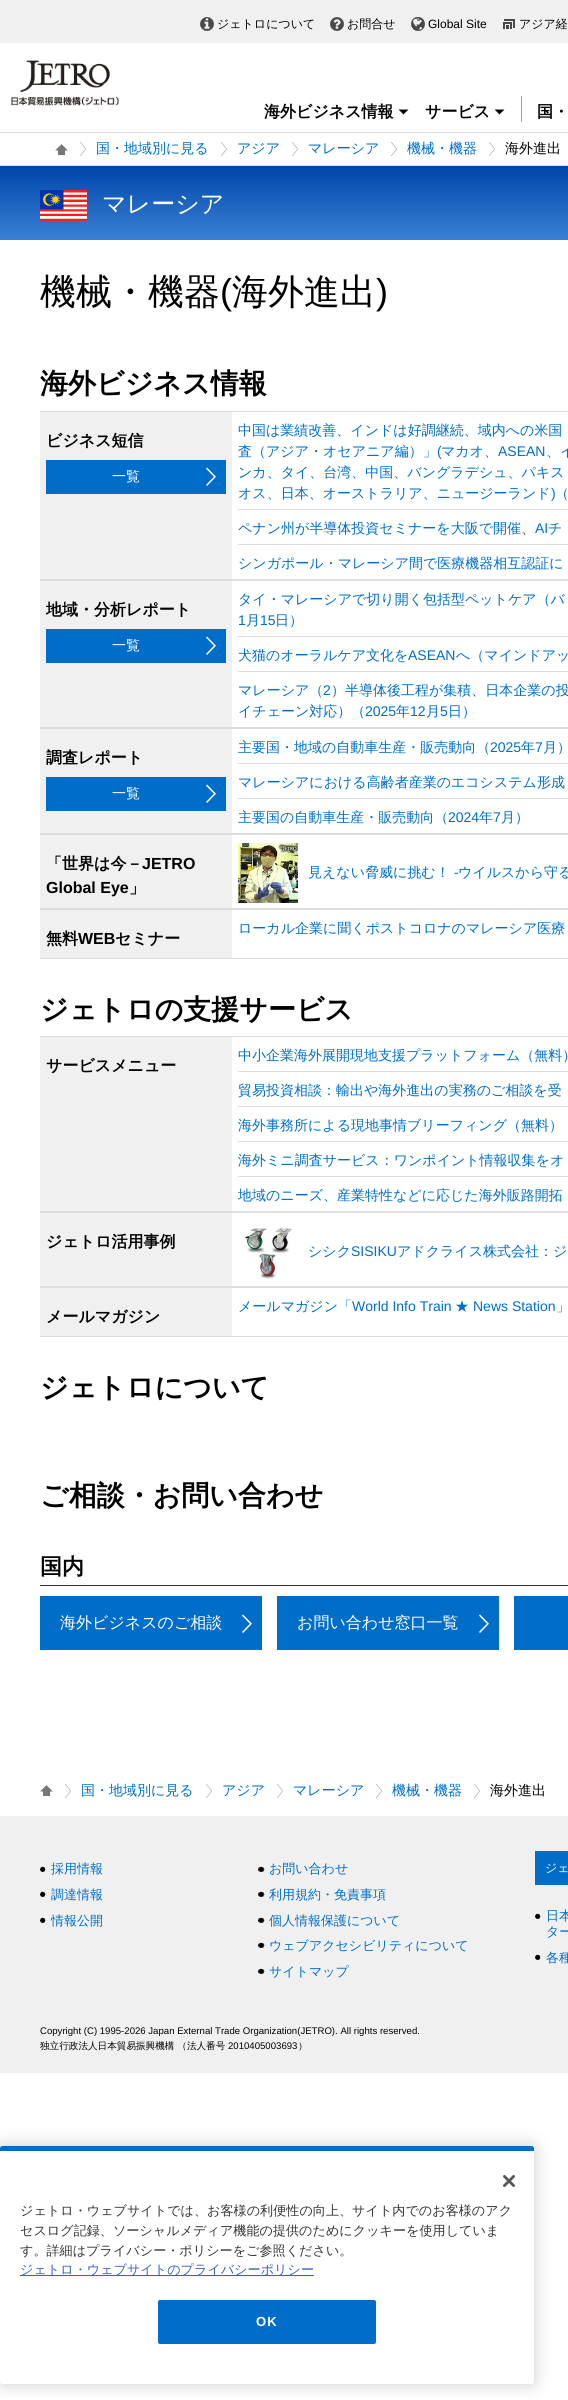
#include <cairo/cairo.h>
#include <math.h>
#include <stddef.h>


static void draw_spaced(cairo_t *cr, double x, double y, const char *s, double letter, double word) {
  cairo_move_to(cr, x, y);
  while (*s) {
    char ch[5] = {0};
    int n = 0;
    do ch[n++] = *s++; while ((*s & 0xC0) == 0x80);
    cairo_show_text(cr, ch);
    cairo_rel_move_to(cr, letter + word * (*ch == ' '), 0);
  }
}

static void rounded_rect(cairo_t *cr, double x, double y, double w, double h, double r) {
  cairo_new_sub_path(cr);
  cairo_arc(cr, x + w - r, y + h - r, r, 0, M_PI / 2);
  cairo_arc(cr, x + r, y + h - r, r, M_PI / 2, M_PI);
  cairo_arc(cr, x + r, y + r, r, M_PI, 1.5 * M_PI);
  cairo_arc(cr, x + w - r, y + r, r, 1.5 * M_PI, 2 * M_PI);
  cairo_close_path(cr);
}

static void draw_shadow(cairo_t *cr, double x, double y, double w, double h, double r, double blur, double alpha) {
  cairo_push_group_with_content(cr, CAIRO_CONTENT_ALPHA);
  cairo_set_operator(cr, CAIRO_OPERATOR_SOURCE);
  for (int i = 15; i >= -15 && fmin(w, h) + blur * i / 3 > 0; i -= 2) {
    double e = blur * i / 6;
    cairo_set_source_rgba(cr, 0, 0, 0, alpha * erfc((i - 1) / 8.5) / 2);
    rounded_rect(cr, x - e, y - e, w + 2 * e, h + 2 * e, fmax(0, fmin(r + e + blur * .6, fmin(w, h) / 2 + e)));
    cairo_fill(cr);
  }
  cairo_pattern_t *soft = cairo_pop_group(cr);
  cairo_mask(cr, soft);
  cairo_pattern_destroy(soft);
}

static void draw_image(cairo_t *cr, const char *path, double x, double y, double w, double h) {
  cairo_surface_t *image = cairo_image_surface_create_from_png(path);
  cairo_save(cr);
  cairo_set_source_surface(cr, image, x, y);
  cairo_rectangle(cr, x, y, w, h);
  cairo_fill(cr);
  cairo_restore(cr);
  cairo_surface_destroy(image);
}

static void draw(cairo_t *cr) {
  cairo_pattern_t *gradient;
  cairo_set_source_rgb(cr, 1, 1, 1);
  cairo_paint(cr);
  cairo_set_source_rgb(cr, 240 / 255.0, 240 / 255.0, 240 / 255.0);
  cairo_rectangle(cr, 0, 0, 568, 43);
  cairo_fill(cr);
  draw_image(cr, "images/1.png", 200, 17, 14, 14);
  draw_image(cr, "images/2.png", 330, 17, 14, 14);
  draw_image(cr, "images/3.png", 411, 17, 14, 14);
  draw_image(cr, "images/4.png", 503, 19, 12, 10);
  draw_image(cr, "images/5.png", 11, 60, 108, 46);
  draw_image(cr, "images/6.png", 398, 109, 11, 6);
  cairo_set_source_rgb(cr, 159 / 255.0, 159 / 255.0, 159 / 255.0);
  cairo_rectangle(cr, 521, 96, 1, 26);
  cairo_fill(cr);
  draw_image(cr, "images/6.png", 494, 109, 11, 6);
  cairo_set_source_rgb(cr, 220 / 255.0, 220 / 255.0, 220 / 255.0);
  cairo_rectangle(cr, 0, 132, 568, 1);
  cairo_fill(cr);
  cairo_rectangle(cr, 0, 165, 568, 1);
  cairo_fill(cr);
  draw_image(cr, "images/7.png", 80, 142, 6, 14);
  draw_image(cr, "images/8.png", 55, 144, 13, 11);
  draw_image(cr, "images/7.png", 221, 142, 6, 14);
  draw_image(cr, "images/7.png", 292, 142, 6, 14);
  draw_image(cr, "images/7.png", 391, 142, 6, 14);
  draw_image(cr, "images/7.png", 489, 142, 6, 14);
  gradient = cairo_pattern_create_linear(520, 166, 520, 240);
  cairo_pattern_add_color_stop_rgba(gradient, 0, 0, 70 / 255.0, 170 / 255.0, 1);
  cairo_pattern_add_color_stop_rgba(gradient, 1, 59 / 255.0, 129 / 255.0, 214 / 255.0, 1);
  cairo_set_source(cr, gradient);
  cairo_pattern_destroy(gradient);
  cairo_rectangle(cr, 0, 166, 568, 74);
  cairo_fill(cr);
  draw_image(cr, "images/9.png", 40, 190, 47, 31);
  cairo_set_source_rgb(cr, 220 / 255.0, 220 / 255.0, 220 / 255.0);
  cairo_rectangle(cr, 40, 411, 528, 1);
  cairo_fill(cr);
  cairo_rectangle(cr, 40, 579, 528, 2);
  cairo_fill(cr);
  cairo_set_source_rgb(cr, 240 / 255.0, 240 / 255.0, 240 / 255.0);
  cairo_rectangle(cr, 40, 412, 192, 167);
  cairo_fill(cr);
  cairo_set_source_rgb(cr, 0, 110 / 255.0, 200 / 255.0);
  cairo_rectangle(cr, 46, 460, 180, 34);
  cairo_fill(cr);
  draw_image(cr, "images/10.png", 206, 467, 10, 19);
  cairo_set_source_rgb(cr, 220 / 255.0, 220 / 255.0, 220 / 255.0);
  cairo_rectangle(cr, 238, 509, 330, 1);
  cairo_fill(cr);
  cairo_rectangle(cr, 238, 544, 330, 1);
  cairo_fill(cr);
  cairo_rectangle(cr, 40, 727, 528, 2);
  cairo_fill(cr);
  cairo_set_source_rgb(cr, 240 / 255.0, 240 / 255.0, 240 / 255.0);
  cairo_rectangle(cr, 40, 581, 192, 146);
  cairo_fill(cr);
  cairo_set_source_rgb(cr, 0, 110 / 255.0, 200 / 255.0);
  cairo_rectangle(cr, 46, 629, 180, 34);
  cairo_fill(cr);
  draw_image(cr, "images/10.png", 206, 636, 10, 19);
  cairo_set_source_rgb(cr, 220 / 255.0, 220 / 255.0, 220 / 255.0);
  cairo_rectangle(cr, 238, 636, 330, 1);
  cairo_fill(cr);
  cairo_rectangle(cr, 238, 671, 330, 1);
  cairo_fill(cr);
  cairo_rectangle(cr, 40, 833, 528, 2);
  cairo_fill(cr);
  cairo_set_source_rgb(cr, 240 / 255.0, 240 / 255.0, 240 / 255.0);
  cairo_rectangle(cr, 40, 729, 192, 104);
  cairo_fill(cr);
  cairo_set_source_rgb(cr, 0, 110 / 255.0, 200 / 255.0);
  cairo_rectangle(cr, 46, 777, 180, 34);
  cairo_fill(cr);
  draw_image(cr, "images/10.png", 206, 784, 10, 19);
  cairo_set_source_rgb(cr, 220 / 255.0, 220 / 255.0, 220 / 255.0);
  cairo_rectangle(cr, 238, 763, 330, 1);
  cairo_fill(cr);
  cairo_rectangle(cr, 238, 798, 330, 1);
  cairo_fill(cr);
  cairo_rectangle(cr, 40, 908, 528, 2);
  cairo_fill(cr);
  cairo_set_source_rgb(cr, 240 / 255.0, 240 / 255.0, 240 / 255.0);
  cairo_rectangle(cr, 40, 835, 192, 73);
  cairo_fill(cr);
  draw_image(cr, "images/11.png", 238, 843, 60, 60);
  cairo_set_source_rgb(cr, 220 / 255.0, 220 / 255.0, 220 / 255.0);
  cairo_rectangle(cr, 40, 958, 528, 1);
  cairo_fill(cr);
  cairo_set_source_rgb(cr, 240 / 255.0, 240 / 255.0, 240 / 255.0);
  cairo_rectangle(cr, 40, 910, 192, 48);
  cairo_fill(cr);
  cairo_set_source_rgb(cr, 220 / 255.0, 220 / 255.0, 220 / 255.0);
  cairo_rectangle(cr, 40, 1036, 528, 1);
  cairo_fill(cr);
  cairo_rectangle(cr, 40, 1211, 528, 2);
  cairo_fill(cr);
  cairo_set_source_rgb(cr, 240 / 255.0, 240 / 255.0, 240 / 255.0);
  cairo_rectangle(cr, 40, 1037, 192, 174);
  cairo_fill(cr);
  cairo_set_source_rgb(cr, 220 / 255.0, 220 / 255.0, 220 / 255.0);
  cairo_rectangle(cr, 238, 1071, 330, 1);
  cairo_fill(cr);
  cairo_rectangle(cr, 238, 1106, 330, 1);
  cairo_fill(cr);
  cairo_rectangle(cr, 238, 1141, 330, 1);
  cairo_fill(cr);
  cairo_rectangle(cr, 238, 1176, 330, 1);
  cairo_fill(cr);
  cairo_rectangle(cr, 40, 1286, 528, 2);
  cairo_fill(cr);
  cairo_set_source_rgb(cr, 240 / 255.0, 240 / 255.0, 240 / 255.0);
  cairo_rectangle(cr, 40, 1213, 192, 73);
  cairo_fill(cr);
  draw_image(cr, "images/12.png", 245, 1225, 47, 54);
  cairo_set_source_rgb(cr, 220 / 255.0, 220 / 255.0, 220 / 255.0);
  cairo_rectangle(cr, 40, 1336, 528, 1);
  cairo_fill(cr);
  cairo_set_source_rgb(cr, 240 / 255.0, 240 / 255.0, 240 / 255.0);
  cairo_rectangle(cr, 40, 1288, 192, 48);
  cairo_fill(cr);
  cairo_set_source_rgb(cr, 51 / 255.0, 51 / 255.0, 51 / 255.0);
  cairo_rectangle(cr, 40, 1585, 528, 1);
  cairo_fill(cr);
  cairo_set_source_rgb(cr, 0, 110 / 255.0, 200 / 255.0);
  cairo_rectangle(cr, 40, 1596, 222, 54);
  cairo_fill(cr);
  draw_image(cr, "images/10.png", 242, 1614, 10, 19);
  cairo_rectangle(cr, 277, 1596, 222, 54);
  cairo_fill(cr);
  draw_image(cr, "images/10.png", 479, 1614, 10, 19);
  cairo_rectangle(cr, 514, 1596, 54, 54);
  cairo_fill(cr);
  draw_image(cr, "images/7.png", 65, 1784, 6, 14);
  draw_image(cr, "images/8.png", 40, 1785, 13, 11);
  draw_image(cr, "images/7.png", 206, 1784, 6, 14);
  draw_image(cr, "images/7.png", 277, 1784, 6, 14);
  draw_image(cr, "images/7.png", 376, 1784, 6, 14);
  draw_image(cr, "images/7.png", 474, 1784, 6, 14);
  cairo_set_source_rgb(cr, 240 / 255.0, 240 / 255.0, 240 / 255.0);
  cairo_rectangle(cr, 0, 1816, 568, 257);
  cairo_fill(cr);
  draw_image(cr, "images/13.png", 40, 1866, 6, 6);
  draw_image(cr, "images/13.png", 40, 1891, 6, 6);
  draw_image(cr, "images/13.png", 40, 1917, 6, 6);
  draw_image(cr, "images/14.png", 258, 1866, 7, 6);
  draw_image(cr, "images/14.png", 258, 1891, 7, 6);
  draw_image(cr, "images/14.png", 258, 1917, 7, 6);
  draw_image(cr, "images/14.png", 258, 1942, 7, 6);
  draw_image(cr, "images/14.png", 258, 1968, 7, 6);
  cairo_set_source_rgb(cr, 0, 110 / 255.0, 200 / 255.0);
  cairo_rectangle(cr, 535, 1851, 33, 34);
  cairo_fill(cr);
  draw_image(cr, "images/13.png", 535, 1913, 6, 6);
  draw_image(cr, "images/13.png", 535, 1954, 6, 6);
  cairo_set_source_rgb(cr, 0, 0, 0);
  draw_shadow(cr, 0, 2146, 534, 238, 2.5, 9, 0.2);
  cairo_set_source_rgb(cr, 1, 1, 1);
  rounded_rect(cr, 0, 2146, 534, 238, 2.5);
  cairo_fill(cr);
  cairo_set_source_rgb(cr, 0, 110 / 255.0, 200 / 255.0);
  cairo_new_path(cr);
  cairo_move_to(cr, 2.5, 2146);
  cairo_line_to(cr, 531.5, 2146);
  cairo_curve_to(cr, 533, 2146, 534, 2147, 534, 2148.5);
  cairo_line_to(cr, 534, 2151);
  cairo_line_to(cr, 0, 2151);
  cairo_line_to(cr, 0, 2148.5);
  cairo_curve_to(cr, 0, 2147, 1, 2146, 2.5, 2146);
  cairo_close_path(cr);
  cairo_fill(cr);
  draw_image(cr, "images/15.png", 503, 2175, 12, 12);
  cairo_set_source_rgb(cr, 56 / 255.0, 96 / 255.0, 190 / 255.0);
  cairo_rectangle(cr, 20, 2275, 294, 1);
  cairo_fill(cr);
  cairo_set_source_rgb(cr, 0, 110 / 255.0, 200 / 255.0);
  rounded_rect(cr, 158.5, 2300.5, 217, 43, 1.5);
  cairo_fill_preserve(cr);
  cairo_set_line_width(cr, 1);
  cairo_stroke(cr);
  cairo_select_font_face(cr, "WenQuanYi Zen Hei Medium", CAIRO_FONT_SLANT_NORMAL, CAIRO_FONT_WEIGHT_NORMAL);
  cairo_set_font_size(cr, 12);
  cairo_set_source_rgb(cr, 0, 0, 0);
  cairo_move_to(cr, 217, 28);
  cairo_show_text(cr, "ジェトロについて");
  cairo_move_to(cr, 347, 28);
  cairo_show_text(cr, "お問合せ");
  cairo_select_font_face(cr, "Liberation Sans", CAIRO_FONT_SLANT_NORMAL, CAIRO_FONT_WEIGHT_NORMAL);
  cairo_move_to(cr, 428, 28);
  cairo_show_text(cr, "Global Site");
  cairo_select_font_face(cr, "WenQuanYi Zen Hei Medium", CAIRO_FONT_SLANT_NORMAL, CAIRO_FONT_WEIGHT_NORMAL);
  cairo_move_to(cr, 519, 28);
  cairo_show_text(cr, "アジア経");
  cairo_select_font_face(cr, "WenQuanYi Zen Hei", CAIRO_FONT_SLANT_NORMAL, CAIRO_FONT_WEIGHT_BOLD);
  cairo_set_font_size(cr, 16);
  cairo_move_to(cr, 264, 117);
  cairo_show_text(cr, "海外ビジネス情報");
  cairo_move_to(cr, 425, 117);
  cairo_show_text(cr, "サービス");
  cairo_move_to(cr, 537, 117);
  cairo_show_text(cr, "国・");
  cairo_select_font_face(cr, "WenQuanYi Zen Hei Medium", CAIRO_FONT_SLANT_NORMAL, CAIRO_FONT_WEIGHT_NORMAL);
  cairo_set_font_size(cr, 14);
  cairo_set_source_rgb(cr, 0, 110 / 255.0, 200 / 255.0);
  cairo_move_to(cr, 96, 153);
  cairo_show_text(cr, "国・地域別に見る");
  cairo_move_to(cr, 237, 153);
  cairo_show_text(cr, "アジア");
  cairo_move_to(cr, 308, 153);
  cairo_show_text(cr, "マレーシア");
  cairo_move_to(cr, 407, 153);
  cairo_show_text(cr, "機械・機器");
  cairo_set_source_rgb(cr, 0, 0, 0);
  cairo_move_to(cr, 505, 153);
  cairo_show_text(cr, "海外進出");
  cairo_set_font_size(cr, 24);
  cairo_set_source_rgb(cr, 1, 1, 1);
  cairo_move_to(cr, 102, 212);
  cairo_show_text(cr, "マレーシア");
  cairo_set_font_size(cr, 36);
  cairo_set_source_rgb(cr, 0, 0, 0);
  cairo_move_to(cr, 40, 304);
  cairo_show_text(cr, "機械・機器");
  cairo_select_font_face(cr, "Liberation Sans", CAIRO_FONT_SLANT_NORMAL, CAIRO_FONT_WEIGHT_NORMAL);
  cairo_move_to(cr, 220, 304);
  cairo_show_text(cr, "(");
  cairo_select_font_face(cr, "WenQuanYi Zen Hei Medium", CAIRO_FONT_SLANT_NORMAL, CAIRO_FONT_WEIGHT_NORMAL);
  cairo_move_to(cr, 232, 304);
  cairo_show_text(cr, "海外進出");
  cairo_select_font_face(cr, "Liberation Sans", CAIRO_FONT_SLANT_NORMAL, CAIRO_FONT_WEIGHT_NORMAL);
  cairo_move_to(cr, 376, 304);
  cairo_show_text(cr, ")");
  cairo_select_font_face(cr, "WenQuanYi Zen Hei", CAIRO_FONT_SLANT_NORMAL, CAIRO_FONT_WEIGHT_BOLD);
  cairo_set_font_size(cr, 28);
  cairo_move_to(cr, 40, 393);
  cairo_show_text(cr, "海外ビジネス情報");
  cairo_set_font_size(cr, 16);
  cairo_move_to(cr, 46, 446);
  cairo_show_text(cr, "ビジネス短信");
  cairo_select_font_face(cr, "WenQuanYi Zen Hei Medium", CAIRO_FONT_SLANT_NORMAL, CAIRO_FONT_WEIGHT_NORMAL);
  cairo_set_font_size(cr, 14);
  cairo_set_source_rgb(cr, 1, 1, 1);
  cairo_move_to(cr, 112, 481);
  cairo_show_text(cr, "一覧");
  cairo_set_source_rgb(cr, 0, 110 / 255.0, 200 / 255.0);
  cairo_move_to(cr, 238, 435);
  cairo_show_text(cr, "中国は業績改善、インドは好調継続、域内への米国");
  cairo_move_to(cr, 238, 456);
  cairo_show_text(cr, "査（アジア・オセアニア編）」");
  cairo_select_font_face(cr, "Liberation Sans", CAIRO_FONT_SLANT_NORMAL, CAIRO_FONT_WEIGHT_NORMAL);
  cairo_move_to(cr, 437, 456);
  cairo_show_text(cr, "(");
  cairo_select_font_face(cr, "WenQuanYi Zen Hei Medium", CAIRO_FONT_SLANT_NORMAL, CAIRO_FONT_WEIGHT_NORMAL);
  cairo_move_to(cr, 441, 456);
  cairo_show_text(cr, "マカオ、");
  cairo_select_font_face(cr, "Liberation Sans", CAIRO_FONT_SLANT_NORMAL, CAIRO_FONT_WEIGHT_NORMAL);
  cairo_move_to(cr, 498, 456);
  cairo_show_text(cr, "ASEAN");
  cairo_select_font_face(cr, "WenQuanYi Zen Hei Medium", CAIRO_FONT_SLANT_NORMAL, CAIRO_FONT_WEIGHT_NORMAL);
  cairo_move_to(cr, 546, 456);
  cairo_show_text(cr, "、イ");
  cairo_move_to(cr, 238, 477);
  cairo_show_text(cr, "ンカ、タイ、台湾、中国、バングラデシュ、パキス");
  cairo_move_to(cr, 238, 498);
  cairo_show_text(cr, "オス、日本、オーストラリア、ニュージーランド");
  cairo_select_font_face(cr, "Liberation Sans", CAIRO_FONT_SLANT_NORMAL, CAIRO_FONT_WEIGHT_NORMAL);
  cairo_move_to(cr, 551, 498);
  cairo_show_text(cr, ")");
  cairo_select_font_face(cr, "WenQuanYi Zen Hei Medium", CAIRO_FONT_SLANT_NORMAL, CAIRO_FONT_WEIGHT_NORMAL);
  cairo_move_to(cr, 555, 498);
  cairo_show_text(cr, "（");
  cairo_move_to(cr, 238, 533);
  cairo_show_text(cr, "ペナン州が半導体投資セミナーを大阪で開催、");
  cairo_select_font_face(cr, "Liberation Sans", CAIRO_FONT_SLANT_NORMAL, CAIRO_FONT_WEIGHT_NORMAL);
  cairo_move_to(cr, 535, 533);
  cairo_show_text(cr, "AI");
  cairo_select_font_face(cr, "WenQuanYi Zen Hei Medium", CAIRO_FONT_SLANT_NORMAL, CAIRO_FONT_WEIGHT_NORMAL);
  cairo_move_to(cr, 548, 533);
  cairo_show_text(cr, "チ");
  cairo_move_to(cr, 238, 568);
  cairo_show_text(cr, "シンガポール・マレーシア間で医療機器相互認証に");
  cairo_select_font_face(cr, "WenQuanYi Zen Hei", CAIRO_FONT_SLANT_NORMAL, CAIRO_FONT_WEIGHT_BOLD);
  cairo_set_font_size(cr, 16);
  cairo_set_source_rgb(cr, 0, 0, 0);
  cairo_move_to(cr, 46, 615);
  cairo_show_text(cr, "地域・分析レポート");
  cairo_select_font_face(cr, "WenQuanYi Zen Hei Medium", CAIRO_FONT_SLANT_NORMAL, CAIRO_FONT_WEIGHT_NORMAL);
  cairo_set_font_size(cr, 14);
  cairo_set_source_rgb(cr, 1, 1, 1);
  cairo_move_to(cr, 112, 650);
  cairo_show_text(cr, "一覧");
  cairo_set_source_rgb(cr, 0, 110 / 255.0, 200 / 255.0);
  cairo_move_to(cr, 238, 604);
  cairo_show_text(cr, "タイ・マレーシアで切り開く包括型ペットケア（バ");
  cairo_select_font_face(cr, "Liberation Sans", CAIRO_FONT_SLANT_NORMAL, CAIRO_FONT_WEIGHT_NORMAL);
  cairo_move_to(cr, 238, 625);
  cairo_show_text(cr, "1");
  cairo_select_font_face(cr, "WenQuanYi Zen Hei Medium", CAIRO_FONT_SLANT_NORMAL, CAIRO_FONT_WEIGHT_NORMAL);
  cairo_move_to(cr, 246, 625);
  cairo_show_text(cr, "月");
  cairo_select_font_face(cr, "Liberation Sans", CAIRO_FONT_SLANT_NORMAL, CAIRO_FONT_WEIGHT_NORMAL);
  cairo_move_to(cr, 260, 625);
  cairo_show_text(cr, "15");
  cairo_select_font_face(cr, "WenQuanYi Zen Hei Medium", CAIRO_FONT_SLANT_NORMAL, CAIRO_FONT_WEIGHT_NORMAL);
  cairo_move_to(cr, 275, 625);
  cairo_show_text(cr, "日）");
  cairo_move_to(cr, 238, 660);
  cairo_show_text(cr, "犬猫のオーラルケア文化を");
  cairo_select_font_face(cr, "Liberation Sans", CAIRO_FONT_SLANT_NORMAL, CAIRO_FONT_WEIGHT_NORMAL);
  cairo_move_to(cr, 408, 660);
  cairo_show_text(cr, "ASEAN");
  cairo_select_font_face(cr, "WenQuanYi Zen Hei Medium", CAIRO_FONT_SLANT_NORMAL, CAIRO_FONT_WEIGHT_NORMAL);
  cairo_move_to(cr, 456, 660);
  cairo_show_text(cr, "へ（マインドアッ");
  cairo_move_to(cr, 238, 695);
  cairo_show_text(cr, "マレーシア（");
  cairo_select_font_face(cr, "Liberation Sans", CAIRO_FONT_SLANT_NORMAL, CAIRO_FONT_WEIGHT_NORMAL);
  cairo_move_to(cr, 323, 695);
  cairo_show_text(cr, "2");
  cairo_select_font_face(cr, "WenQuanYi Zen Hei Medium", CAIRO_FONT_SLANT_NORMAL, CAIRO_FONT_WEIGHT_NORMAL);
  cairo_move_to(cr, 331, 695);
  cairo_show_text(cr, "）半導体後工程が集積、日本企業の投");
  cairo_move_to(cr, 238, 716);
  cairo_show_text(cr, "イチェーン対応）（");
  cairo_select_font_face(cr, "Liberation Sans", CAIRO_FONT_SLANT_NORMAL, CAIRO_FONT_WEIGHT_NORMAL);
  cairo_move_to(cr, 365, 716);
  cairo_show_text(cr, "2025");
  cairo_select_font_face(cr, "WenQuanYi Zen Hei Medium", CAIRO_FONT_SLANT_NORMAL, CAIRO_FONT_WEIGHT_NORMAL);
  cairo_move_to(cr, 396, 716);
  cairo_show_text(cr, "年");
  cairo_select_font_face(cr, "Liberation Sans", CAIRO_FONT_SLANT_NORMAL, CAIRO_FONT_WEIGHT_NORMAL);
  cairo_move_to(cr, 410, 716);
  cairo_show_text(cr, "12");
  cairo_select_font_face(cr, "WenQuanYi Zen Hei Medium", CAIRO_FONT_SLANT_NORMAL, CAIRO_FONT_WEIGHT_NORMAL);
  cairo_move_to(cr, 426, 716);
  cairo_show_text(cr, "月");
  cairo_select_font_face(cr, "Liberation Sans", CAIRO_FONT_SLANT_NORMAL, CAIRO_FONT_WEIGHT_NORMAL);
  cairo_move_to(cr, 440, 716);
  cairo_show_text(cr, "5");
  cairo_select_font_face(cr, "WenQuanYi Zen Hei Medium", CAIRO_FONT_SLANT_NORMAL, CAIRO_FONT_WEIGHT_NORMAL);
  cairo_move_to(cr, 448, 716);
  cairo_show_text(cr, "日）");
  cairo_select_font_face(cr, "WenQuanYi Zen Hei", CAIRO_FONT_SLANT_NORMAL, CAIRO_FONT_WEIGHT_BOLD);
  cairo_set_font_size(cr, 16);
  cairo_set_source_rgb(cr, 0, 0, 0);
  cairo_move_to(cr, 46, 763);
  cairo_show_text(cr, "調査レポート");
  cairo_select_font_face(cr, "WenQuanYi Zen Hei Medium", CAIRO_FONT_SLANT_NORMAL, CAIRO_FONT_WEIGHT_NORMAL);
  cairo_set_font_size(cr, 14);
  cairo_set_source_rgb(cr, 1, 1, 1);
  cairo_move_to(cr, 112, 798);
  cairo_show_text(cr, "一覧");
  cairo_set_source_rgb(cr, 0, 110 / 255.0, 200 / 255.0);
  cairo_move_to(cr, 238, 752);
  cairo_show_text(cr, "主要国・地域の自動車生産・販売動向（");
  cairo_select_font_face(cr, "Liberation Sans", CAIRO_FONT_SLANT_NORMAL, CAIRO_FONT_WEIGHT_NORMAL);
  cairo_move_to(cr, 490, 752);
  cairo_show_text(cr, "2025");
  cairo_select_font_face(cr, "WenQuanYi Zen Hei Medium", CAIRO_FONT_SLANT_NORMAL, CAIRO_FONT_WEIGHT_NORMAL);
  cairo_move_to(cr, 521, 752);
  cairo_show_text(cr, "年");
  cairo_select_font_face(cr, "Liberation Sans", CAIRO_FONT_SLANT_NORMAL, CAIRO_FONT_WEIGHT_NORMAL);
  cairo_move_to(cr, 535, 752);
  cairo_show_text(cr, "7");
  cairo_select_font_face(cr, "WenQuanYi Zen Hei Medium", CAIRO_FONT_SLANT_NORMAL, CAIRO_FONT_WEIGHT_NORMAL);
  cairo_move_to(cr, 543, 752);
  cairo_show_text(cr, "月）");
  cairo_move_to(cr, 238, 787);
  cairo_show_text(cr, "マレーシアにおける高齢者産業のエコシステム形成");
  cairo_move_to(cr, 238, 822);
  cairo_show_text(cr, "主要国の自動車生産・販売動向（");
  cairo_select_font_face(cr, "Liberation Sans", CAIRO_FONT_SLANT_NORMAL, CAIRO_FONT_WEIGHT_NORMAL);
  cairo_move_to(cr, 448, 822);
  cairo_show_text(cr, "2024");
  cairo_select_font_face(cr, "WenQuanYi Zen Hei Medium", CAIRO_FONT_SLANT_NORMAL, CAIRO_FONT_WEIGHT_NORMAL);
  cairo_move_to(cr, 479, 822);
  cairo_show_text(cr, "年");
  cairo_select_font_face(cr, "Liberation Sans", CAIRO_FONT_SLANT_NORMAL, CAIRO_FONT_WEIGHT_NORMAL);
  cairo_move_to(cr, 493, 822);
  cairo_show_text(cr, "7");
  cairo_select_font_face(cr, "WenQuanYi Zen Hei Medium", CAIRO_FONT_SLANT_NORMAL, CAIRO_FONT_WEIGHT_NORMAL);
  cairo_move_to(cr, 501, 822);
  cairo_show_text(cr, "月）");
  cairo_select_font_face(cr, "WenQuanYi Zen Hei", CAIRO_FONT_SLANT_NORMAL, CAIRO_FONT_WEIGHT_BOLD);
  cairo_set_font_size(cr, 16);
  cairo_set_source_rgb(cr, 0, 0, 0);
  cairo_move_to(cr, 46, 869);
  cairo_show_text(cr, "「世界は今－");
  cairo_select_font_face(cr, "Liberation Sans", CAIRO_FONT_SLANT_NORMAL, CAIRO_FONT_WEIGHT_BOLD);
  cairo_move_to(cr, 142, 869);
  cairo_show_text(cr, "JETRO");
  cairo_move_to(cr, 46, 893);
  cairo_show_text(cr, "Global Eye");
  cairo_select_font_face(cr, "WenQuanYi Zen Hei", CAIRO_FONT_SLANT_NORMAL, CAIRO_FONT_WEIGHT_BOLD);
  cairo_move_to(cr, 129, 893);
  cairo_show_text(cr, "」");
  cairo_select_font_face(cr, "WenQuanYi Zen Hei Medium", CAIRO_FONT_SLANT_NORMAL, CAIRO_FONT_WEIGHT_NORMAL);
  cairo_set_font_size(cr, 14);
  cairo_set_source_rgb(cr, 0, 110 / 255.0, 200 / 255.0);
  cairo_move_to(cr, 308, 877);
  cairo_show_text(cr, "見えない脅威に挑む！");
  cairo_select_font_face(cr, "Liberation Sans", CAIRO_FONT_SLANT_NORMAL, CAIRO_FONT_WEIGHT_NORMAL);
  cairo_move_to(cr, 454, 877);
  cairo_show_text(cr, "‐");
  cairo_select_font_face(cr, "WenQuanYi Zen Hei Medium", CAIRO_FONT_SLANT_NORMAL, CAIRO_FONT_WEIGHT_NORMAL);
  cairo_move_to(cr, 458, 877);
  cairo_show_text(cr, "ウイルスから守る");
  cairo_move_to(cr, 238, 933);
  cairo_show_text(cr, "ローカル企業に聞くポストコロナのマレーシア医療");
  cairo_select_font_face(cr, "WenQuanYi Zen Hei", CAIRO_FONT_SLANT_NORMAL, CAIRO_FONT_WEIGHT_BOLD);
  cairo_set_font_size(cr, 16);
  cairo_set_source_rgb(cr, 0, 0, 0);
  cairo_move_to(cr, 46, 944);
  cairo_show_text(cr, "無料");
  cairo_select_font_face(cr, "Liberation Sans", CAIRO_FONT_SLANT_NORMAL, CAIRO_FONT_WEIGHT_BOLD);
  cairo_move_to(cr, 78, 944);
  cairo_show_text(cr, "WEB");
  cairo_select_font_face(cr, "WenQuanYi Zen Hei", CAIRO_FONT_SLANT_NORMAL, CAIRO_FONT_WEIGHT_BOLD);
  cairo_move_to(cr, 115, 944);
  cairo_show_text(cr, "セミナー");
  cairo_set_font_size(cr, 28);
  cairo_move_to(cr, 40, 1019);
  cairo_show_text(cr, "ジェトロの支援サービス");
  cairo_set_font_size(cr, 16);
  cairo_move_to(cr, 46, 1071);
  cairo_show_text(cr, "サービスメニュー");
  cairo_select_font_face(cr, "WenQuanYi Zen Hei Medium", CAIRO_FONT_SLANT_NORMAL, CAIRO_FONT_WEIGHT_NORMAL);
  cairo_set_font_size(cr, 14);
  cairo_set_source_rgb(cr, 0, 110 / 255.0, 200 / 255.0);
  cairo_move_to(cr, 238, 1060);
  cairo_show_text(cr, "中小企業海外展開現地支援プラットフォーム（無料）");
  cairo_move_to(cr, 238, 1095);
  cairo_show_text(cr, "貿易投資相談：輸出や海外進出の実務のご相談を受");
  cairo_move_to(cr, 238, 1130);
  cairo_show_text(cr, "海外事務所による現地事情ブリーフィング（無料）");
  cairo_move_to(cr, 238, 1165);
  cairo_show_text(cr, "海外ミニ調査サービス：ワンポイント情報収集をオ");
  cairo_move_to(cr, 238, 1200);
  cairo_show_text(cr, "地域のニーズ、産業特性などに応じた海外販路開拓");
  cairo_select_font_face(cr, "WenQuanYi Zen Hei", CAIRO_FONT_SLANT_NORMAL, CAIRO_FONT_WEIGHT_BOLD);
  cairo_set_font_size(cr, 16);
  cairo_set_source_rgb(cr, 0, 0, 0);
  cairo_move_to(cr, 46, 1247);
  cairo_show_text(cr, "ジェトロ活用事例");
  cairo_select_font_face(cr, "WenQuanYi Zen Hei Medium", CAIRO_FONT_SLANT_NORMAL, CAIRO_FONT_WEIGHT_NORMAL);
  cairo_set_font_size(cr, 14);
  cairo_set_source_rgb(cr, 0, 110 / 255.0, 200 / 255.0);
  cairo_move_to(cr, 308, 1256);
  cairo_show_text(cr, "シシク");
  cairo_select_font_face(cr, "Liberation Sans", CAIRO_FONT_SLANT_NORMAL, CAIRO_FONT_WEIGHT_NORMAL);
  cairo_move_to(cr, 351, 1256);
  cairo_show_text(cr, "SISIKU");
  cairo_select_font_face(cr, "WenQuanYi Zen Hei Medium", CAIRO_FONT_SLANT_NORMAL, CAIRO_FONT_WEIGHT_NORMAL);
  cairo_move_to(cr, 397, 1256);
  cairo_show_text(cr, "アドクライス株式会社：ジ");
  cairo_move_to(cr, 238, 1311);
  cairo_show_text(cr, "メールマガジン「");
  cairo_select_font_face(cr, "Liberation Sans", CAIRO_FONT_SLANT_NORMAL, CAIRO_FONT_WEIGHT_NORMAL);
  cairo_move_to(cr, 352, 1311);
  cairo_show_text(cr, "World Info Train");
  cairo_select_font_face(cr, "WenQuanYi Zen Hei Medium", CAIRO_FONT_SLANT_NORMAL, CAIRO_FONT_WEIGHT_NORMAL);
  cairo_move_to(cr, 455, 1311);
  cairo_show_text(cr, "★");
  cairo_select_font_face(cr, "Liberation Sans", CAIRO_FONT_SLANT_NORMAL, CAIRO_FONT_WEIGHT_NORMAL);
  cairo_move_to(cr, 473, 1311);
  cairo_show_text(cr, "News Station");
  cairo_select_font_face(cr, "WenQuanYi Zen Hei Medium", CAIRO_FONT_SLANT_NORMAL, CAIRO_FONT_WEIGHT_NORMAL);
  cairo_move_to(cr, 556, 1311);
  cairo_show_text(cr, "」");
  cairo_select_font_face(cr, "WenQuanYi Zen Hei", CAIRO_FONT_SLANT_NORMAL, CAIRO_FONT_WEIGHT_BOLD);
  cairo_set_font_size(cr, 16);
  cairo_set_source_rgb(cr, 0, 0, 0);
  cairo_move_to(cr, 46, 1322);
  cairo_show_text(cr, "メールマガジン");
  cairo_set_font_size(cr, 28);
  cairo_move_to(cr, 40, 1397);
  cairo_show_text(cr, "ジェトロについて");
  cairo_move_to(cr, 40, 1505);
  cairo_show_text(cr, "ご相談・お問い合わせ");
  cairo_set_font_size(cr, 22);
  cairo_move_to(cr, 40, 1574);
  cairo_show_text(cr, "国内");
  cairo_select_font_face(cr, "WenQuanYi Zen Hei Medium", CAIRO_FONT_SLANT_NORMAL, CAIRO_FONT_WEIGHT_NORMAL);
  cairo_set_font_size(cr, 16);
  cairo_set_source_rgb(cr, 1, 1, 1);
  cairo_move_to(cr, 60, 1628);
  cairo_show_text(cr, "海外ビジネスのご相談");
  cairo_move_to(cr, 297, 1628);
  cairo_show_text(cr, "お問い合わせ窓口一覧");
  cairo_set_font_size(cr, 14);
  cairo_set_source_rgb(cr, 0, 110 / 255.0, 200 / 255.0);
  cairo_move_to(cr, 81, 1795);
  cairo_show_text(cr, "国・地域別に見る");
  cairo_move_to(cr, 222, 1795);
  cairo_show_text(cr, "アジア");
  cairo_move_to(cr, 293, 1795);
  cairo_show_text(cr, "マレーシア");
  cairo_move_to(cr, 392, 1795);
  cairo_show_text(cr, "機械・機器");
  cairo_set_source_rgb(cr, 0, 0, 0);
  cairo_move_to(cr, 490, 1795);
  cairo_show_text(cr, "海外進出");
  cairo_set_font_size(cr, 13);
  cairo_set_source_rgb(cr, 0, 110 / 255.0, 200 / 255.0);
  cairo_move_to(cr, 51, 1873);
  cairo_show_text(cr, "採用情報");
  cairo_move_to(cr, 51, 1899);
  cairo_show_text(cr, "調達情報");
  cairo_move_to(cr, 51, 1925);
  cairo_show_text(cr, "情報公開");
  cairo_move_to(cr, 269, 1873);
  cairo_show_text(cr, "お問い合わせ");
  cairo_move_to(cr, 269, 1899);
  cairo_show_text(cr, "利用規約・免責事項");
  cairo_move_to(cr, 269, 1925);
  cairo_show_text(cr, "個人情報保護について");
  cairo_move_to(cr, 269, 1950);
  cairo_show_text(cr, "ウェブアクセシビリティについて");
  cairo_move_to(cr, 269, 1976);
  cairo_show_text(cr, "サイトマップ");
  cairo_set_font_size(cr, 12);
  cairo_set_source_rgb(cr, 1, 1, 1);
  cairo_move_to(cr, 545, 1872);
  cairo_show_text(cr, "ジェ");
  cairo_set_font_size(cr, 13);
  cairo_set_source_rgb(cr, 0, 110 / 255.0, 200 / 255.0);
  cairo_move_to(cr, 546, 1920);
  cairo_show_text(cr, "日本");
  cairo_move_to(cr, 546, 1936);
  cairo_show_text(cr, "ター");
  cairo_move_to(cr, 546, 1962);
  cairo_show_text(cr, "各種");
  cairo_select_font_face(cr, "Liberation Sans", CAIRO_FONT_SLANT_NORMAL, CAIRO_FONT_WEIGHT_NORMAL);
  cairo_set_font_size(cr, 9.6);
  cairo_set_source_rgb(cr, 0, 0, 0);
  cairo_move_to(cr, 40, 2034);
  cairo_show_text(cr, "Copyright (C) 1995-2026 Japan External Trade Organization(JETRO). All rights reserved.");
  cairo_select_font_face(cr, "WenQuanYi Zen Hei Medium", CAIRO_FONT_SLANT_NORMAL, CAIRO_FONT_WEIGHT_NORMAL);
  cairo_move_to(cr, 40, 2049);
  cairo_show_text(cr, "独立行政法人日本貿易振興機構 （法人番号");
  cairo_select_font_face(cr, "Liberation Sans", CAIRO_FONT_SLANT_NORMAL, CAIRO_FONT_WEIGHT_NORMAL);
  cairo_move_to(cr, 228, 2049);
  cairo_show_text(cr, "2010405003693");
  cairo_select_font_face(cr, "WenQuanYi Zen Hei Medium", CAIRO_FONT_SLANT_NORMAL, CAIRO_FONT_WEIGHT_NORMAL);
  cairo_move_to(cr, 298, 2049);
  cairo_show_text(cr, "）");
  cairo_set_font_size(cr, 13.1);
  cairo_set_source_rgb(cr, 51 / 255.0, 51 / 255.0, 51 / 255.0);
  cairo_move_to(cr, 20, 2215);
  cairo_show_text(cr, "ジェトロ・ウェブサイトでは、お客様の利便性の向上、サイト内でのお客様のアク");
  cairo_move_to(cr, 20, 2235);
  cairo_show_text(cr, "セスログ記録、ソーシャルメディア機能の提供のためにクッキーを使用していま");
  cairo_move_to(cr, 20, 2255);
  cairo_show_text(cr, "す。詳細はプライバシー・ポリシーをご参照ください。");
  cairo_set_source_rgb(cr, 56 / 255.0, 96 / 255.0, 190 / 255.0);
  cairo_move_to(cr, 20, 2274);
  cairo_show_text(cr, "ジェトロ・ウェブサイトのプライバシーポリシー");
  cairo_select_font_face(cr, "Liberation Sans", CAIRO_FONT_SLANT_NORMAL, CAIRO_FONT_WEIGHT_BOLD);
  cairo_set_source_rgb(cr, 1, 1, 1);
  draw_spaced(cr, 256, 2326, "OK", 1, 0);
}

int main(void) {
  cairo_surface_t *surface = cairo_image_surface_create(CAIRO_FORMAT_RGB24, 568, 2400);
  cairo_t *cr = cairo_create(surface);
  cairo_font_options_t *options = cairo_font_options_create();
  cairo_font_options_set_hint_metrics(options, CAIRO_HINT_METRICS_OFF);
  cairo_font_options_set_hint_style(options, CAIRO_HINT_STYLE_NONE);
  cairo_set_font_options(cr, options);
  cairo_set_miter_limit(cr, 4);
  draw(cr);
  cairo_surface_write_to_png(surface, "out.png");
  cairo_font_options_destroy(options);
  cairo_destroy(cr);
  cairo_surface_destroy(surface);
  return 0;
}
